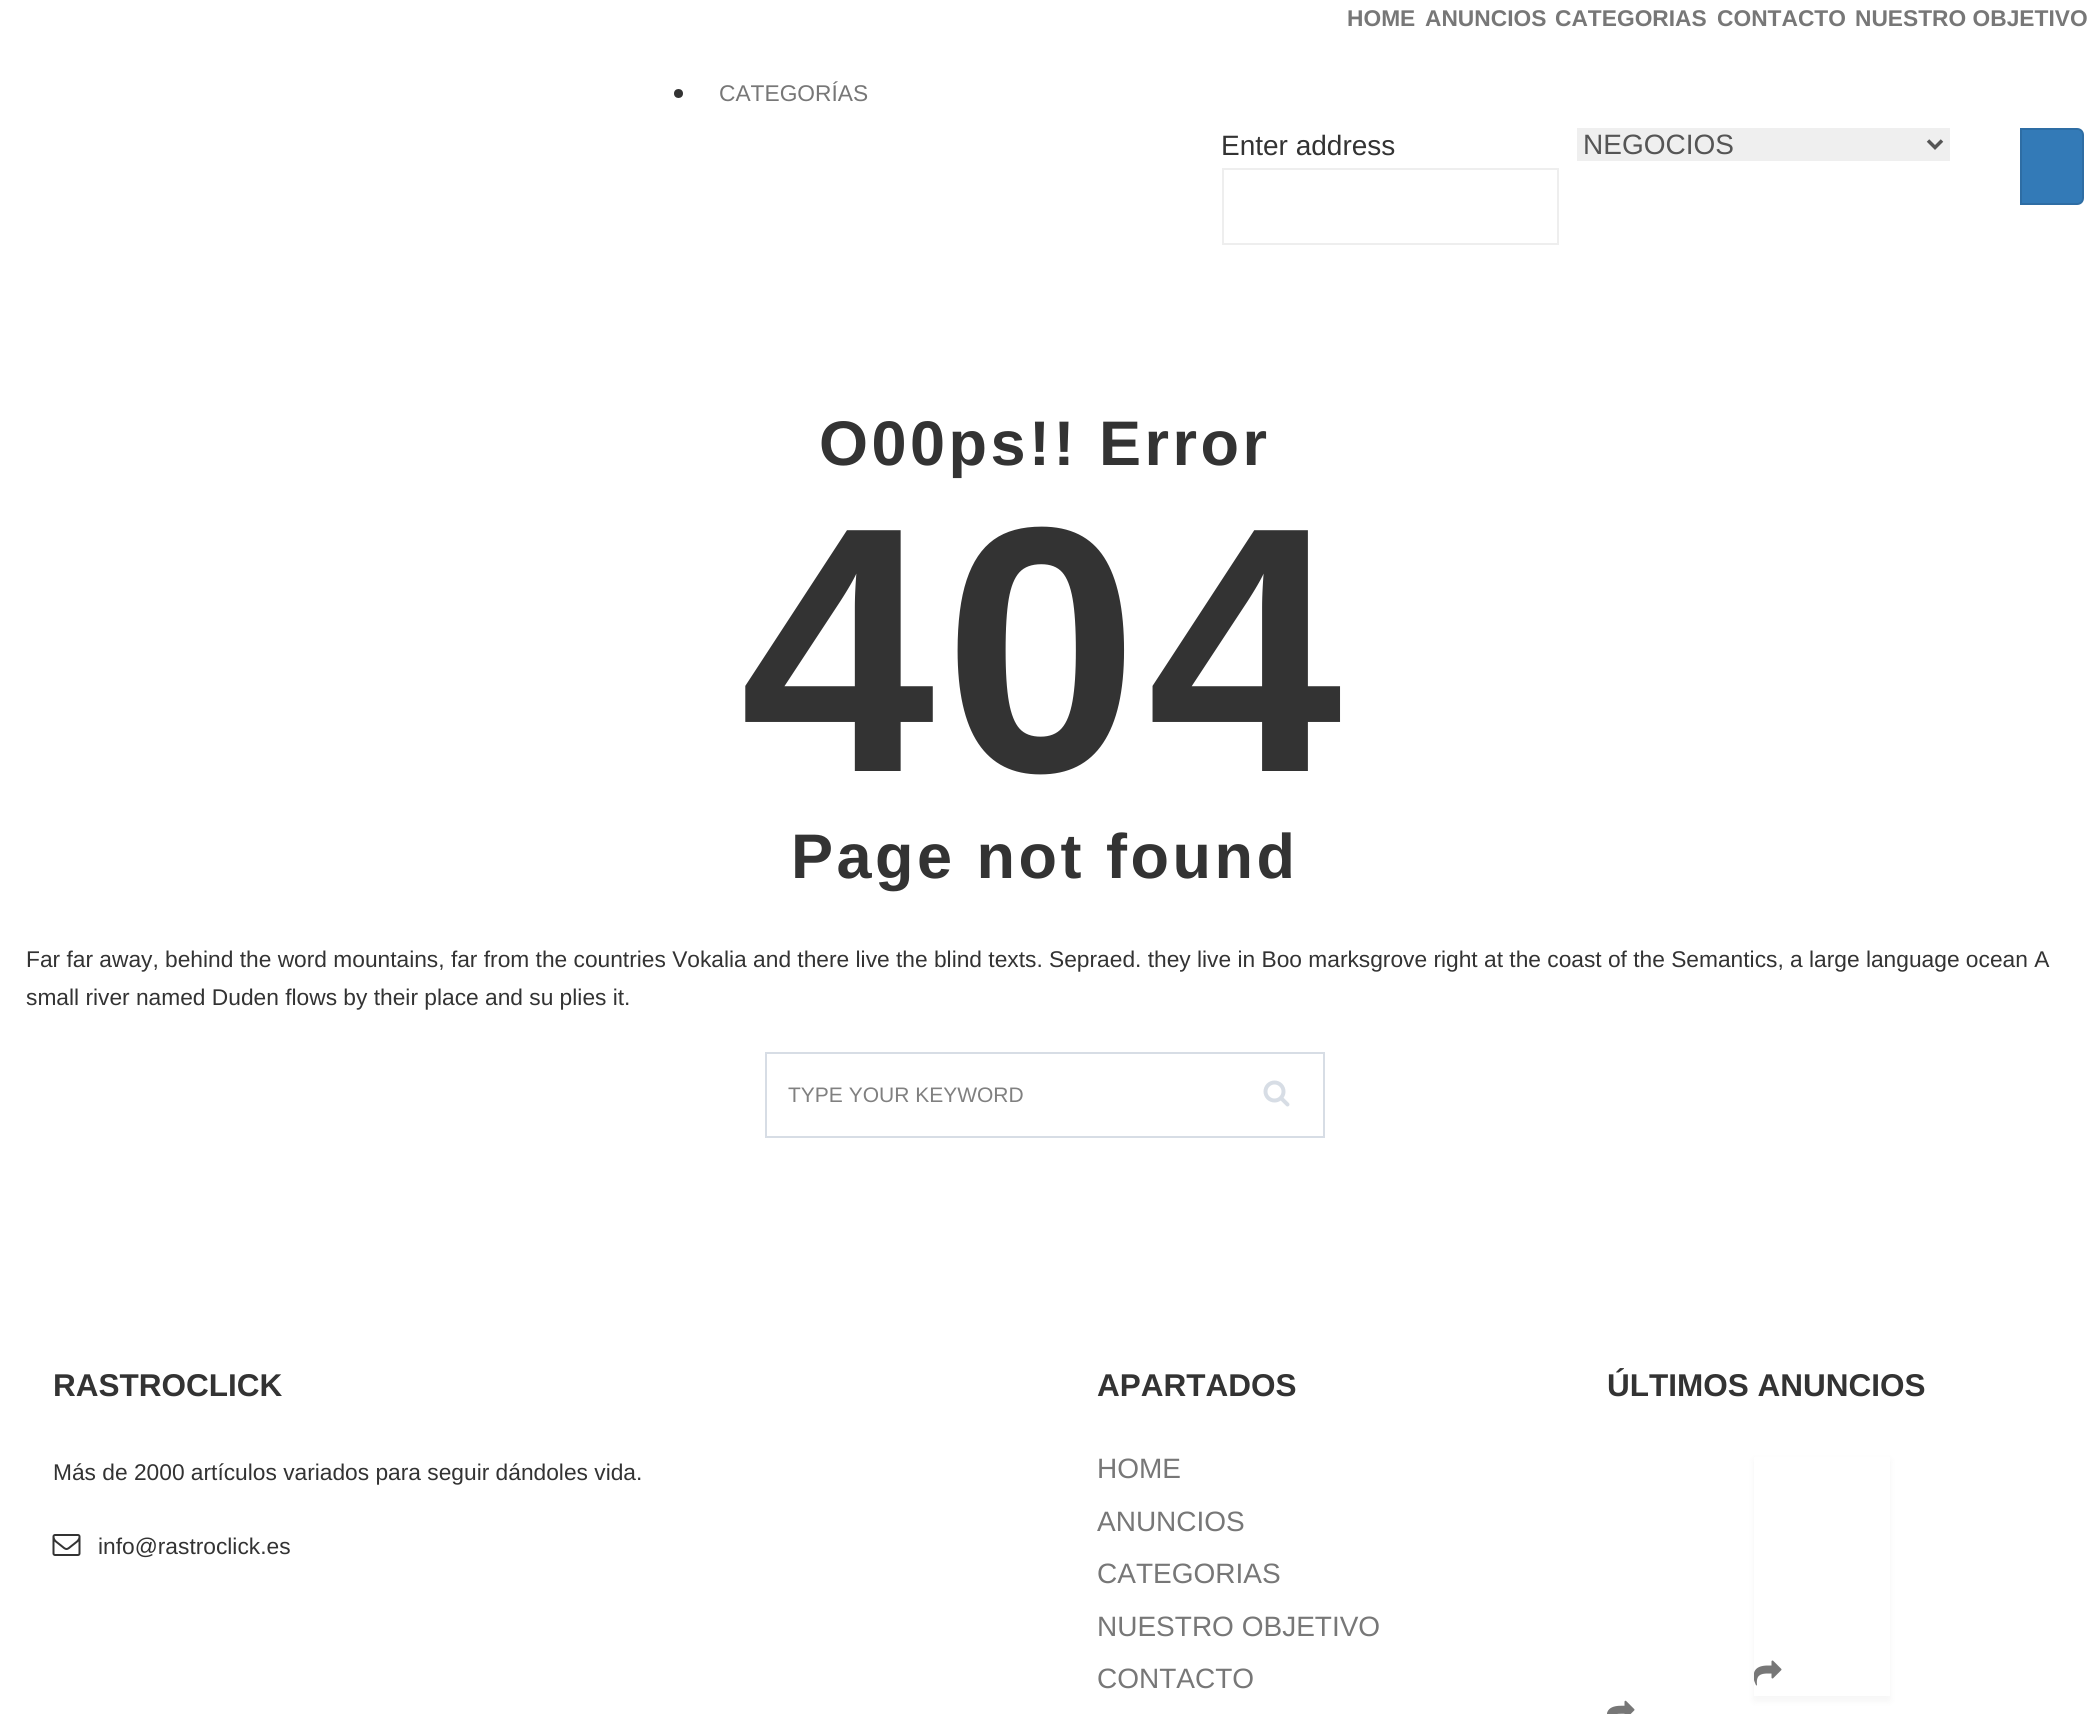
#include <cairo/cairo.h>
#include <math.h>
#include <stddef.h>


static void draw_spaced(cairo_t *cr, double x, double y, const char *s, double letter, double word) {
  cairo_move_to(cr, x, y);
  while (*s) {
    char ch[5] = {0};
    int n = 0;
    do ch[n++] = *s++; while ((*s & 0xC0) == 0x80);
    cairo_show_text(cr, ch);
    cairo_rel_move_to(cr, letter + word * (*ch == ' '), 0);
  }
}

static void rounded_rect(cairo_t *cr, double x, double y, double w, double h, double r) {
  cairo_new_sub_path(cr);
  cairo_arc(cr, x + w - r, y + h - r, r, 0, M_PI / 2);
  cairo_arc(cr, x + r, y + h - r, r, M_PI / 2, M_PI);
  cairo_arc(cr, x + r, y + r, r, M_PI, 1.5 * M_PI);
  cairo_arc(cr, x + w - r, y + r, r, 1.5 * M_PI, 2 * M_PI);
  cairo_close_path(cr);
}

static void draw_shadow(cairo_t *cr, double x, double y, double w, double h, double r, double blur, double alpha) {
  cairo_push_group_with_content(cr, CAIRO_CONTENT_ALPHA);
  cairo_set_operator(cr, CAIRO_OPERATOR_SOURCE);
  for (int i = 15; i >= -15 && fmin(w, h) + blur * i / 3 > 0; i -= 2) {
    double e = blur * i / 6;
    cairo_set_source_rgba(cr, 0, 0, 0, alpha * erfc((i - 1) / 8.5) / 2);
    rounded_rect(cr, x - e, y - e, w + 2 * e, h + 2 * e, fmax(0, fmin(r + e + blur * .6, fmin(w, h) / 2 + e)));
    cairo_fill(cr);
  }
  cairo_pattern_t *soft = cairo_pop_group(cr);
  cairo_mask(cr, soft);
  cairo_pattern_destroy(soft);
}

static void draw_image(cairo_t *cr, const char *path, double x, double y, double w, double h) {
  cairo_surface_t *image = cairo_image_surface_create_from_png(path);
  cairo_save(cr);
  cairo_set_source_surface(cr, image, x, y);
  cairo_rectangle(cr, x, y, w, h);
  cairo_fill(cr);
  cairo_restore(cr);
  cairo_surface_destroy(image);
}

static void draw(cairo_t *cr) {
  cairo_set_source_rgb(cr, 1, 1, 1);
  cairo_paint(cr);
  cairo_set_source_rgb(cr, 51 / 255.0, 51 / 255.0, 51 / 255.0);
  cairo_arc(cr, 678.5, 93.5, 4.5, 0, 2 * M_PI);
  cairo_fill(cr);
  cairo_rectangle(cr, 1223, 169, 335, 75);
  cairo_set_source_rgb(cr, 238 / 255.0, 238 / 255.0, 238 / 255.0);
  cairo_stroke(cr);
  cairo_set_source_rgb(cr, 239 / 255.0, 239 / 255.0, 239 / 255.0);
  cairo_rectangle(cr, 1577, 128, 373, 33);
  cairo_fill(cr);
  cairo_new_path(cr);
  cairo_move_to(cr, 1928, 140.5);
  cairo_line_to(cr, 1935, 147.5);
  cairo_line_to(cr, 1942, 140.5);
  cairo_set_source_rgb(cr, 85 / 255.0, 85 / 255.0, 85 / 255.0);
  cairo_set_line_width(cr, 3.5);
  cairo_stroke(cr);
  cairo_set_source_rgb(cr, 51 / 255.0, 122 / 255.0, 183 / 255.0);
  cairo_new_path(cr);
  cairo_move_to(cr, 2021, 129);
  cairo_line_to(cr, 2077, 129);
  cairo_curve_to(cr, 2080.5, 129, 2083, 131.5, 2083, 135);
  cairo_line_to(cr, 2083, 198);
  cairo_curve_to(cr, 2083, 201.5, 2080.5, 204, 2077, 204);
  cairo_line_to(cr, 2021, 204);
  cairo_close_path(cr);
  cairo_fill_preserve(cr);
  cairo_set_source_rgb(cr, 46 / 255.0, 109 / 255.0, 164 / 255.0);
  cairo_set_line_width(cr, 2);
  cairo_stroke(cr);
  cairo_rectangle(cr, 766, 1053, 558, 84);
  cairo_set_source_rgb(cr, 215 / 255.0, 221 / 255.0, 229 / 255.0);
  cairo_stroke(cr);
  draw_image(cr, "images/1.png", 1263, 1080, 27, 27);
  draw_image(cr, "images/2.png", 52, 1534, 29, 22);
  draw_image(cr, "images/3.png", 1607, 1700, 28, 14);
  cairo_set_source_rgb(cr, 0, 0, 0);
  draw_shadow(cr, 1754, 1460, 136, 241, 0, 4.5, 0.04);
  cairo_set_source_rgb(cr, 1, 1, 1);
  cairo_rectangle(cr, 1754, 1457, 136, 239);
  cairo_fill(cr);
  draw_image(cr, "images/4.png", 1754, 1660, 28, 26);
  cairo_select_font_face(cr, "Liberation Sans", CAIRO_FONT_SLANT_NORMAL, CAIRO_FONT_WEIGHT_BOLD);
  cairo_set_font_size(cr, 22.75);
  cairo_set_source_rgb(cr, 119 / 255.0, 119 / 255.0, 119 / 255.0);
  cairo_move_to(cr, 1347, 26);
  cairo_show_text(cr, "HOME");
  cairo_move_to(cr, 1425, 26);
  cairo_show_text(cr, "ANUNCIOS");
  cairo_move_to(cr, 1555, 26);
  cairo_show_text(cr, "CATEGORIAS");
  cairo_move_to(cr, 1717, 26);
  cairo_show_text(cr, "CONTACTO");
  cairo_move_to(cr, 1855, 26);
  cairo_show_text(cr, "NUESTRO OBJETIVO");
  cairo_select_font_face(cr, "Liberation Sans", CAIRO_FONT_SLANT_NORMAL, CAIRO_FONT_WEIGHT_NORMAL);
  cairo_move_to(cr, 719, 101);
  cairo_show_text(cr, "CATEGORÍAS");
  cairo_set_font_size(cr, 28);
  cairo_set_source_rgb(cr, 51 / 255.0, 51 / 255.0, 51 / 255.0);
  cairo_move_to(cr, 1221, 155);
  cairo_show_text(cr, "Enter address");
  cairo_set_source_rgb(cr, 85 / 255.0, 85 / 255.0, 85 / 255.0);
  cairo_move_to(cr, 1583, 154);
  cairo_show_text(cr, "NEGOCIOS");
  cairo_select_font_face(cr, "Liberation Sans", CAIRO_FONT_SLANT_NORMAL, CAIRO_FONT_WEIGHT_BOLD);
  cairo_set_font_size(cr, 63);
  cairo_set_source_rgb(cr, 51 / 255.0, 51 / 255.0, 51 / 255.0);
  draw_spaced(cr, 819, 465, "O00ps!! Error", 3.5, 0);
  cairo_set_font_size(cr, 350);
  draw_spaced(cr, 740, 771, "404", 9, 0);
  cairo_set_font_size(cr, 63);
  draw_spaced(cr, 791, 878, "Page not found", 3.5, 0);
  cairo_select_font_face(cr, "Liberation Sans", CAIRO_FONT_SLANT_NORMAL, CAIRO_FONT_WEIGHT_NORMAL);
  cairo_set_font_size(cr, 22.75);
  cairo_move_to(cr, 26, 967);
  cairo_show_text(cr, "Far far away, behind the word mountains, far from the countries Vokalia and there live the blind texts. Sepraed. they live in Boo marksgrove right at the coast of the Semantics, a large language ocean A");
  cairo_move_to(cr, 26, 1005);
  cairo_show_text(cr, "small river named Duden flows by their place and su plies it.");
  cairo_set_font_size(cr, 21);
  cairo_set_source_rgb(cr, 128 / 255.0, 128 / 255.0, 128 / 255.0);
  cairo_move_to(cr, 788, 1102);
  cairo_show_text(cr, "TYPE YOUR KEYWORD");
  cairo_select_font_face(cr, "Liberation Sans", CAIRO_FONT_SLANT_NORMAL, CAIRO_FONT_WEIGHT_BOLD);
  cairo_set_font_size(cr, 31.5);
  cairo_set_source_rgb(cr, 51 / 255.0, 51 / 255.0, 51 / 255.0);
  cairo_move_to(cr, 53, 1396);
  cairo_show_text(cr, "RASTROCLICK");
  cairo_select_font_face(cr, "Liberation Sans", CAIRO_FONT_SLANT_NORMAL, CAIRO_FONT_WEIGHT_NORMAL);
  cairo_set_font_size(cr, 22.75);
  cairo_move_to(cr, 53, 1480);
  cairo_show_text(cr, "Más de 2000 artículos variados para seguir dándoles vida.");
  cairo_move_to(cr, 98, 1554);
  cairo_show_text(cr, "info@rastroclick.es");
  cairo_select_font_face(cr, "Liberation Sans", CAIRO_FONT_SLANT_NORMAL, CAIRO_FONT_WEIGHT_BOLD);
  cairo_set_font_size(cr, 31.5);
  cairo_move_to(cr, 1097, 1396);
  cairo_show_text(cr, "APARTADOS");
  cairo_select_font_face(cr, "Liberation Sans", CAIRO_FONT_SLANT_NORMAL, CAIRO_FONT_WEIGHT_NORMAL);
  cairo_set_font_size(cr, 28);
  cairo_set_source_rgb(cr, 119 / 255.0, 119 / 255.0, 119 / 255.0);
  cairo_move_to(cr, 1097, 1478);
  cairo_show_text(cr, "HOME");
  cairo_move_to(cr, 1097, 1531);
  cairo_show_text(cr, "ANUNCIOS");
  cairo_move_to(cr, 1097, 1583);
  cairo_show_text(cr, "CATEGORIAS");
  cairo_move_to(cr, 1097, 1636);
  cairo_show_text(cr, "NUESTRO OBJETIVO");
  cairo_move_to(cr, 1097, 1688);
  cairo_show_text(cr, "CONTACTO");
  cairo_select_font_face(cr, "Liberation Sans", CAIRO_FONT_SLANT_NORMAL, CAIRO_FONT_WEIGHT_BOLD);
  cairo_set_font_size(cr, 31.5);
  cairo_set_source_rgb(cr, 51 / 255.0, 51 / 255.0, 51 / 255.0);
  cairo_move_to(cr, 1607, 1396);
  cairo_show_text(cr, "ÚLTIMOS ANUNCIOS");
}

int main(void) {
  cairo_surface_t *surface = cairo_image_surface_create(CAIRO_FORMAT_RGB24, 2088, 1714);
  cairo_t *cr = cairo_create(surface);
  cairo_font_options_t *options = cairo_font_options_create();
  cairo_font_options_set_hint_metrics(options, CAIRO_HINT_METRICS_OFF);
  cairo_font_options_set_hint_style(options, CAIRO_HINT_STYLE_NONE);
  cairo_set_font_options(cr, options);
  cairo_set_miter_limit(cr, 4);
  draw(cr);
  cairo_surface_write_to_png(surface, "out.png");
  cairo_font_options_destroy(options);
  cairo_destroy(cr);
  cairo_surface_destroy(surface);
  return 0;
}
